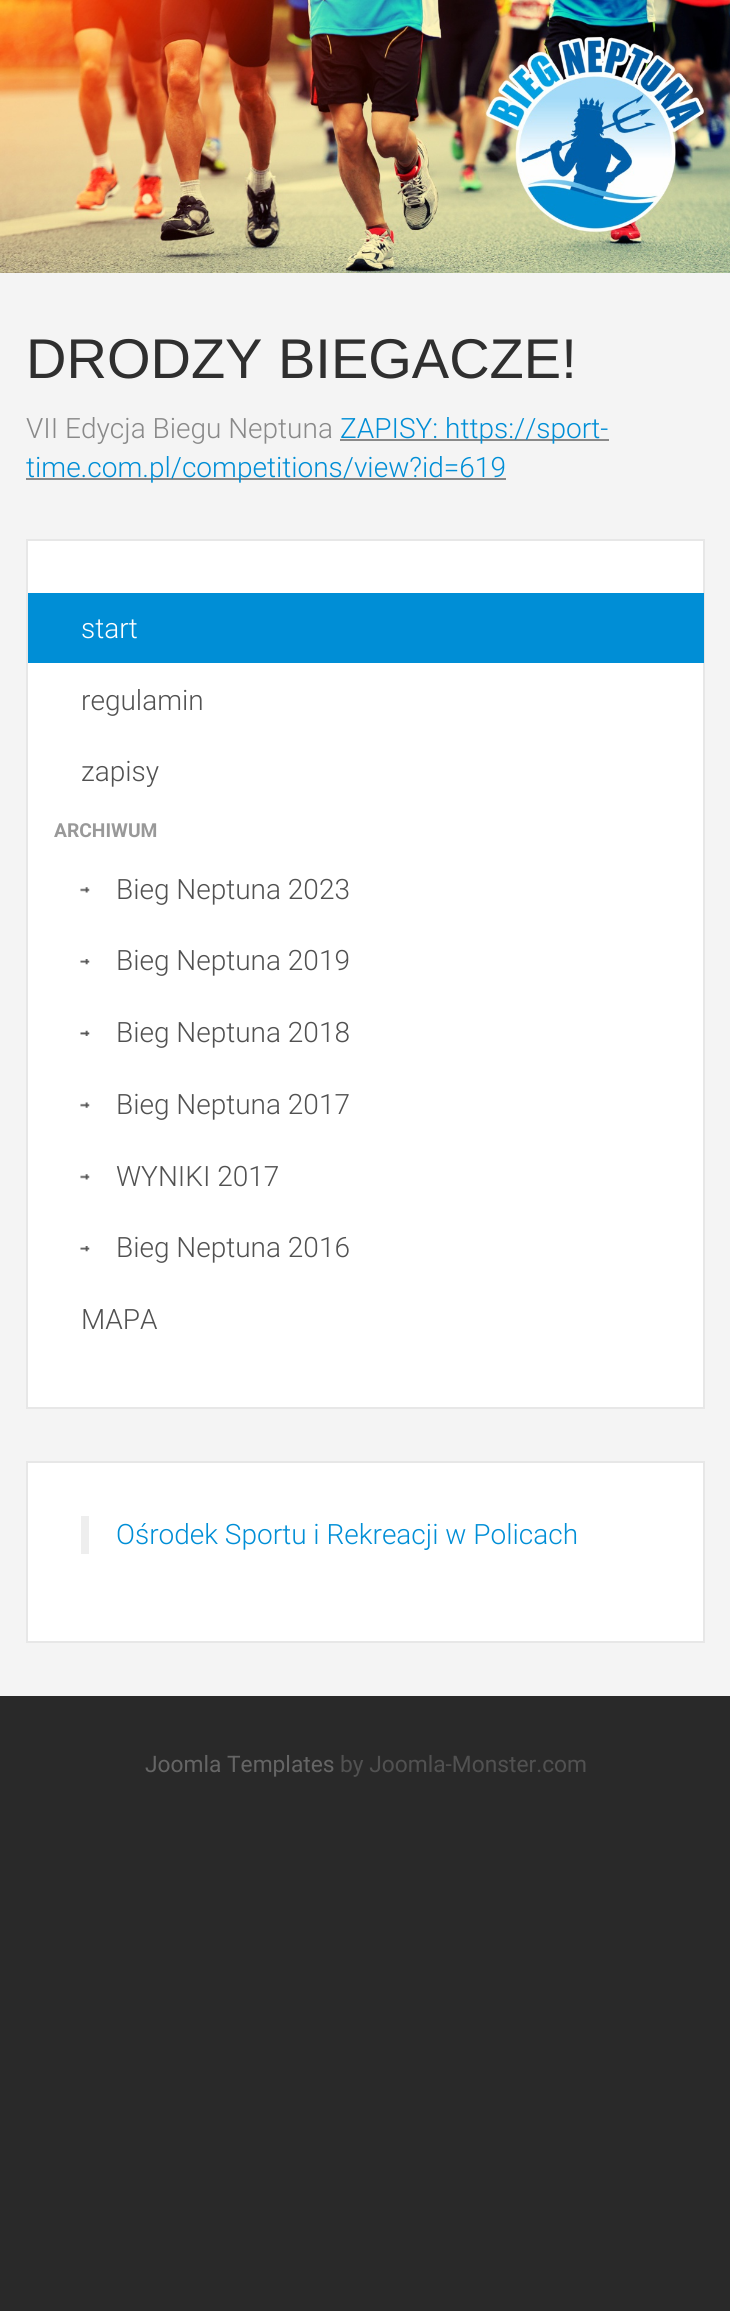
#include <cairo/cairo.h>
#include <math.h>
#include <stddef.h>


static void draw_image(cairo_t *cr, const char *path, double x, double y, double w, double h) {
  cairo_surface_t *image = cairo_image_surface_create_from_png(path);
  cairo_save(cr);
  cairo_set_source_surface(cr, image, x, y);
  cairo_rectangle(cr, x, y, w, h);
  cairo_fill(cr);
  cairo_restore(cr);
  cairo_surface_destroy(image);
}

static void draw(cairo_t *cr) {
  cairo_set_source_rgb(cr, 41 / 255.0, 41 / 255.0, 41 / 255.0);
  cairo_paint(cr);
  cairo_set_source_rgb(cr, 244 / 255.0, 244 / 255.0, 244 / 255.0);
  cairo_rectangle(cr, 0, 273, 730, 1423);
  cairo_fill(cr);
  draw_image(cr, "images/1.png", 0, 0, 730, 273);
  cairo_set_source_rgb(cr, 137 / 255.0, 137 / 255.0, 137 / 255.0);
  cairo_rectangle(cr, 340, 439, 269, 2);
  cairo_fill(cr);
  cairo_rectangle(cr, 26, 478, 480, 2);
  cairo_fill(cr);
  cairo_set_source_rgb(cr, 1, 1, 1);
  cairo_rectangle(cr, 27, 540, 677, 868);
  cairo_fill_preserve(cr);
  cairo_set_source_rgb(cr, 231 / 255.0, 231 / 255.0, 231 / 255.0);
  cairo_stroke(cr);
  cairo_set_source_rgb(cr, 0, 142 / 255.0, 214 / 255.0);
  cairo_rectangle(cr, 28, 593, 676, 70);
  cairo_fill(cr);
  draw_image(cr, "images/2.png", 80, 887, 10, 6);
  draw_image(cr, "images/3.png", 80, 959, 10, 6);
  draw_image(cr, "images/4.png", 80, 1030, 10, 6);
  draw_image(cr, "images/5.png", 80, 1102, 10, 6);
  draw_image(cr, "images/2.png", 80, 1174, 10, 6);
  draw_image(cr, "images/3.png", 80, 1246, 10, 6);
  cairo_set_source_rgb(cr, 1, 1, 1);
  cairo_rectangle(cr, 27, 1462, 677, 180);
  cairo_fill_preserve(cr);
  cairo_set_source_rgb(cr, 231 / 255.0, 231 / 255.0, 231 / 255.0);
  cairo_stroke(cr);
  cairo_set_source_rgb(cr, 238 / 255.0, 238 / 255.0, 238 / 255.0);
  cairo_rectangle(cr, 81, 1516, 8, 38);
  cairo_fill(cr);
  cairo_select_font_face(cr, "Liberation Sans", CAIRO_FONT_SLANT_NORMAL, CAIRO_FONT_WEIGHT_NORMAL);
  cairo_set_font_size(cr, 56);
  cairo_set_source_rgb(cr, 47 / 255.0, 47 / 255.0, 47 / 255.0);
  cairo_move_to(cr, 26, 378);
  cairo_show_text(cr, "DRODZY BIEGACZE!");
  cairo_select_font_face(cr, "Roboto Light", CAIRO_FONT_SLANT_NORMAL, CAIRO_FONT_WEIGHT_NORMAL);
  cairo_set_font_size(cr, 28);
  cairo_set_source_rgb(cr, 137 / 255.0, 137 / 255.0, 137 / 255.0);
  cairo_move_to(cr, 26, 438);
  cairo_show_text(cr, "VII Edycja Biegu Neptuna");
  cairo_set_source_rgb(cr, 0, 142 / 255.0, 214 / 255.0);
  cairo_move_to(cr, 340, 438);
  cairo_show_text(cr, "ZAPISY: https://sport-");
  cairo_move_to(cr, 26, 477);
  cairo_show_text(cr, "time.com.pl/competitions/view?id=619");
  cairo_set_source_rgb(cr, 1, 1, 1);
  cairo_move_to(cr, 81, 638);
  cairo_show_text(cr, "start");
  cairo_set_source_rgb(cr, 81 / 255.0, 81 / 255.0, 81 / 255.0);
  cairo_move_to(cr, 81, 710);
  cairo_show_text(cr, "regulamin");
  cairo_move_to(cr, 81, 781);
  cairo_show_text(cr, "zapisy");
  cairo_select_font_face(cr, "Roboto", CAIRO_FONT_SLANT_NORMAL, CAIRO_FONT_WEIGHT_BOLD);
  cairo_set_font_size(cr, 19.25);
  cairo_set_source_rgb(cr, 153 / 255.0, 153 / 255.0, 153 / 255.0);
  cairo_move_to(cr, 54, 837);
  cairo_show_text(cr, "ARCHIWUM");
  cairo_select_font_face(cr, "Roboto Light", CAIRO_FONT_SLANT_NORMAL, CAIRO_FONT_WEIGHT_NORMAL);
  cairo_set_font_size(cr, 28);
  cairo_set_source_rgb(cr, 81 / 255.0, 81 / 255.0, 81 / 255.0);
  cairo_move_to(cr, 116, 899);
  cairo_show_text(cr, "Bieg Neptuna 2023");
  cairo_move_to(cr, 116, 970);
  cairo_show_text(cr, "Bieg Neptuna 2019");
  cairo_move_to(cr, 116, 1042);
  cairo_show_text(cr, "Bieg Neptuna 2018");
  cairo_move_to(cr, 116, 1114);
  cairo_show_text(cr, "Bieg Neptuna 2017");
  cairo_move_to(cr, 116, 1186);
  cairo_show_text(cr, "WYNIKI 2017");
  cairo_move_to(cr, 116, 1257);
  cairo_show_text(cr, "Bieg Neptuna 2016");
  cairo_move_to(cr, 81, 1329);
  cairo_show_text(cr, "MAPA");
  cairo_set_source_rgb(cr, 0, 142 / 255.0, 214 / 255.0);
  cairo_move_to(cr, 116, 1544);
  cairo_show_text(cr, "Ośrodek Sportu i Rekreacji w Policach");
  cairo_select_font_face(cr, "Roboto", CAIRO_FONT_SLANT_NORMAL, CAIRO_FONT_WEIGHT_NORMAL);
  cairo_set_font_size(cr, 22.75);
  cairo_set_source_rgb(cr, 101 / 255.0, 101 / 255.0, 101 / 255.0);
  cairo_move_to(cr, 145, 1772);
  cairo_show_text(cr, "Joomla Templates");
  cairo_set_source_rgb(cr, 81 / 255.0, 81 / 255.0, 81 / 255.0);
  cairo_move_to(cr, 340, 1772);
  cairo_show_text(cr, "by Joomla-Monster.com");
}

int main(void) {
  cairo_surface_t *surface = cairo_image_surface_create(CAIRO_FORMAT_RGB24, 730, 2311);
  cairo_t *cr = cairo_create(surface);
  cairo_font_options_t *options = cairo_font_options_create();
  cairo_font_options_set_hint_metrics(options, CAIRO_HINT_METRICS_OFF);
  cairo_font_options_set_hint_style(options, CAIRO_HINT_STYLE_NONE);
  cairo_set_font_options(cr, options);
  cairo_set_miter_limit(cr, 4);
  draw(cr);
  cairo_surface_write_to_png(surface, "out.png");
  cairo_font_options_destroy(options);
  cairo_destroy(cr);
  cairo_surface_destroy(surface);
  return 0;
}
